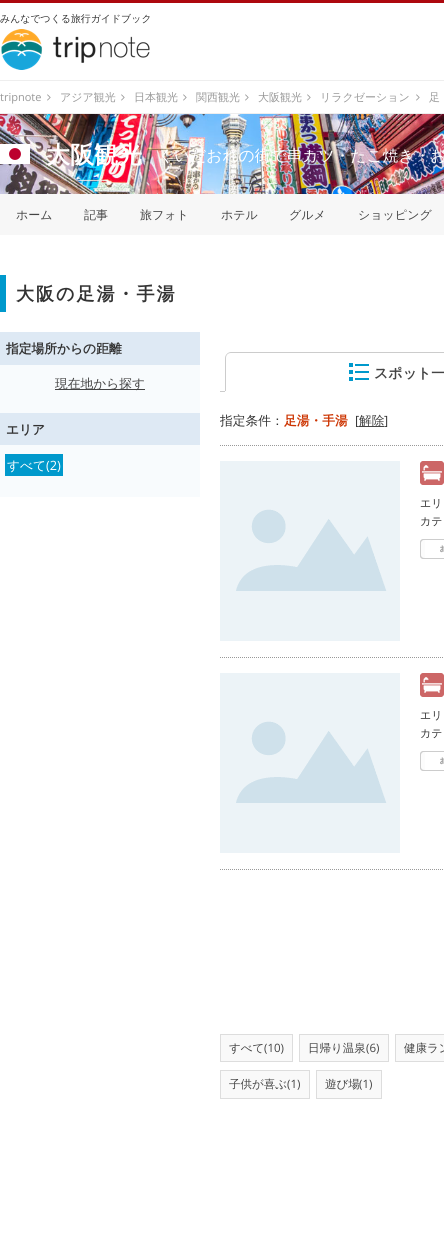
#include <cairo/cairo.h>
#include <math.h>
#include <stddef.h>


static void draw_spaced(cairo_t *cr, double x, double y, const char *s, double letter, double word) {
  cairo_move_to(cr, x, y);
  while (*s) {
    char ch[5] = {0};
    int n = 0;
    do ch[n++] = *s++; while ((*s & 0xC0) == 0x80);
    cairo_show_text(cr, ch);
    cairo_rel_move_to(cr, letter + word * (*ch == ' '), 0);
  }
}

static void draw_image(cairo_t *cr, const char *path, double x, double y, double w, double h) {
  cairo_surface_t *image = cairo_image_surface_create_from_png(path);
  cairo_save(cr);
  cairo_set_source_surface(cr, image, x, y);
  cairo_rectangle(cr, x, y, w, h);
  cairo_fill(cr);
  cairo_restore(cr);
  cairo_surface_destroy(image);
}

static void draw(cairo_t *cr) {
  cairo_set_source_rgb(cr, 1, 1, 1);
  cairo_paint(cr);
  cairo_set_source_rgb(cr, 173 / 255.0, 8 / 255.0, 14 / 255.0);
  cairo_rectangle(cr, 0, 0, 444, 3);
  cairo_fill(cr);
  draw_image(cr, "images/1.png", 1, 29, 149, 41);
  cairo_set_source_rgb(cr, 238 / 255.0, 238 / 255.0, 238 / 255.0);
  cairo_rectangle(cr, 0, 80, 444, 1);
  cairo_fill(cr);
  cairo_rectangle(cr, 0, 113, 444, 1);
  cairo_fill(cr);
  draw_image(cr, "images/2.png", 47, 94, 4, 7);
  draw_image(cr, "images/2.png", 121, 94, 4, 7);
  draw_image(cr, "images/2.png", 183, 94, 4, 7);
  draw_image(cr, "images/2.png", 245, 94, 4, 7);
  draw_image(cr, "images/2.png", 307, 94, 4, 7);
  draw_image(cr, "images/2.png", 416, 94, 4, 7);
  draw_image(cr, "images/3.png", 0, 114, 444, 80);
  draw_image(cr, "images/4.png", 0, 144, 30, 20);
  cairo_set_source_rgb(cr, 247 / 255.0, 247 / 255.0, 247 / 255.0);
  cairo_rectangle(cr, 0, 194, 444, 41);
  cairo_fill(cr);
  cairo_set_source_rgb(cr, 0, 153 / 255.0, 204 / 255.0);
  cairo_rectangle(cr, 0, 275, 6, 37);
  cairo_fill(cr);
  cairo_set_source_rgb(cr, 248 / 255.0, 251 / 255.0, 253 / 255.0);
  cairo_rectangle(cr, 0, 365, 200, 132);
  cairo_fill(cr);
  cairo_set_source_rgb(cr, 222 / 255.0, 233 / 255.0, 244 / 255.0);
  cairo_rectangle(cr, 0, 332, 200, 33);
  cairo_fill(cr);
  cairo_set_source_rgb(cr, 68 / 255.0, 68 / 255.0, 68 / 255.0);
  cairo_rectangle(cr, 55, 389, 90, 1);
  cairo_fill(cr);
  cairo_set_source_rgb(cr, 222 / 255.0, 233 / 255.0, 244 / 255.0);
  cairo_rectangle(cr, 0, 413, 200, 32);
  cairo_fill(cr);
  cairo_set_source_rgb(cr, 0, 153 / 255.0, 204 / 255.0);
  cairo_rectangle(cr, 5, 454, 58, 22);
  cairo_fill(cr);
  cairo_set_source_rgb(cr, 204 / 255.0, 204 / 255.0, 204 / 255.0);
  cairo_rectangle(cr, 220, 391, 5, 1);
  cairo_fill(cr);
  cairo_set_fill_rule(cr, CAIRO_FILL_RULE_EVEN_ODD);
  cairo_new_path(cr);
  cairo_move_to(cr, 231, 352);
  cairo_line_to(cr, 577, 352);
  cairo_curve_to(cr, 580, 352, 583, 355, 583, 358);
  cairo_line_to(cr, 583, 391);
  cairo_line_to(cr, 225, 391);
  cairo_line_to(cr, 225, 358);
  cairo_curve_to(cr, 225, 355, 228, 352, 231, 352);
  cairo_close_path(cr);
  cairo_move_to(cr, 231, 353);
  cairo_line_to(cr, 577, 353);
  cairo_curve_to(cr, 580, 353, 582, 355, 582, 358);
  cairo_line_to(cr, 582, 391);
  cairo_line_to(cr, 226, 391);
  cairo_line_to(cr, 226, 358);
  cairo_curve_to(cr, 226, 355, 228, 353, 231, 353);
  cairo_close_path(cr);
  cairo_fill(cr);
  draw_image(cr, "images/5.png", 349, 363, 20, 18);
  cairo_set_source_rgb(cr, 68 / 255.0, 68 / 255.0, 68 / 255.0);
  cairo_rectangle(cr, 359, 426, 25, 1);
  cairo_fill(cr);
  cairo_new_path(cr);
  cairo_move_to(cr, 220, 445.5);
  cairo_line_to(cr, 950, 445.5);
  cairo_set_source_rgb(cr, 153 / 255.0, 153 / 255.0, 153 / 255.0);
  cairo_set_line_width(cr, 1);
  cairo_set_dash(cr, (double[]){1, 1}, 2, 0);
  cairo_stroke(cr);
  cairo_new_path(cr);
  cairo_move_to(cr, 220, 657.5);
  cairo_line_to(cr, 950, 657.5);
  cairo_stroke(cr);
  draw_image(cr, "images/6.png", 220, 461, 180, 180);
  draw_image(cr, "images/7.png", 420, 461, 24, 24);
  draw_image(cr, "images/8.png", 420, 539, 24, 20);
  cairo_new_path(cr);
  cairo_move_to(cr, 220, 869.5);
  cairo_line_to(cr, 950, 869.5);
  cairo_stroke(cr);
  draw_image(cr, "images/6.png", 220, 673, 180, 180);
  draw_image(cr, "images/7.png", 420, 673, 24, 24);
  draw_image(cr, "images/8.png", 420, 751, 24, 20);
  cairo_set_source_rgb(cr, 249 / 255.0, 249 / 255.0, 249 / 255.0);
  cairo_rectangle(cr, 220.5, 1034.5, 72, 27);
  cairo_fill_preserve(cr);
  cairo_set_source_rgb(cr, 221 / 255.0, 221 / 255.0, 221 / 255.0);
  cairo_set_dash(cr, NULL, 0, 0);
  cairo_stroke(cr);
  cairo_set_source_rgb(cr, 249 / 255.0, 249 / 255.0, 249 / 255.0);
  cairo_rectangle(cr, 299.5, 1034.5, 89, 27);
  cairo_fill_preserve(cr);
  cairo_set_source_rgb(cr, 221 / 255.0, 221 / 255.0, 221 / 255.0);
  cairo_stroke(cr);
  cairo_set_source_rgb(cr, 249 / 255.0, 249 / 255.0, 249 / 255.0);
  cairo_rectangle(cr, 395.5, 1034.5, 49, 27);
  cairo_fill_preserve(cr);
  cairo_set_source_rgb(cr, 221 / 255.0, 221 / 255.0, 221 / 255.0);
  cairo_stroke(cr);
  cairo_set_source_rgb(cr, 249 / 255.0, 249 / 255.0, 249 / 255.0);
  cairo_rectangle(cr, 220.5, 1070.5, 89, 28);
  cairo_fill_preserve(cr);
  cairo_set_source_rgb(cr, 221 / 255.0, 221 / 255.0, 221 / 255.0);
  cairo_stroke(cr);
  cairo_set_source_rgb(cr, 249 / 255.0, 249 / 255.0, 249 / 255.0);
  cairo_rectangle(cr, 316.5, 1070.5, 65, 28);
  cairo_fill_preserve(cr);
  cairo_set_source_rgb(cr, 221 / 255.0, 221 / 255.0, 221 / 255.0);
  cairo_stroke(cr);
  cairo_select_font_face(cr, "WenQuanYi Zen Hei Medium", CAIRO_FONT_SLANT_NORMAL, CAIRO_FONT_WEIGHT_NORMAL);
  cairo_set_font_size(cr, 9.9);
  cairo_set_source_rgb(cr, 51 / 255.0, 51 / 255.0, 51 / 255.0);
  cairo_move_to(cr, 0, 22);
  cairo_show_text(cr, "みんなでつくる旅行ガイドブック");
  cairo_select_font_face(cr, "Open Sans", CAIRO_FONT_SLANT_NORMAL, CAIRO_FONT_WEIGHT_NORMAL);
  cairo_set_font_size(cr, 11);
  cairo_set_source_rgb(cr, 153 / 255.0, 153 / 255.0, 153 / 255.0);
  cairo_move_to(cr, 0, 101);
  cairo_show_text(cr, "tripnote");
  cairo_select_font_face(cr, "WenQuanYi Zen Hei Medium", CAIRO_FONT_SLANT_NORMAL, CAIRO_FONT_WEIGHT_NORMAL);
  cairo_move_to(cr, 60, 101);
  cairo_show_text(cr, "アジア観光");
  cairo_move_to(cr, 134, 101);
  cairo_show_text(cr, "日本観光");
  cairo_move_to(cr, 196, 101);
  cairo_show_text(cr, "関西観光");
  cairo_move_to(cr, 258, 101);
  cairo_show_text(cr, "大阪観光");
  cairo_move_to(cr, 320, 101);
  cairo_show_text(cr, "リラクゼーション");
  cairo_move_to(cr, 429, 101);
  cairo_show_text(cr, "足");
  cairo_select_font_face(cr, "WenQuanYi Zen Hei", CAIRO_FONT_SLANT_NORMAL, CAIRO_FONT_WEIGHT_BOLD);
  cairo_set_font_size(cr, 24);
  cairo_set_source_rgb(cr, 1, 1, 1);
  cairo_move_to(cr, 46, 163);
  cairo_show_text(cr, "大阪観光");
  cairo_select_font_face(cr, "WenQuanYi Zen Hei Medium", CAIRO_FONT_SLANT_NORMAL, CAIRO_FONT_WEIGHT_NORMAL);
  cairo_set_font_size(cr, 15.75);
  cairo_move_to(cr, 158, 161);
  cairo_show_text(cr, "くいだおれの街で串カツ・たこ焼き・お");
  cairo_set_font_size(cr, 12);
  cairo_set_source_rgb(cr, 68 / 255.0, 68 / 255.0, 68 / 255.0);
  cairo_move_to(cr, 16, 219);
  cairo_show_text(cr, "ホーム");
  cairo_move_to(cr, 84, 219);
  cairo_show_text(cr, "記事");
  cairo_move_to(cr, 140, 219);
  cairo_show_text(cr, "旅フォト");
  cairo_move_to(cr, 221, 219);
  cairo_show_text(cr, "ホテル");
  cairo_move_to(cr, 289, 219);
  cairo_show_text(cr, "グルメ");
  cairo_move_to(cr, 358, 219);
  cairo_show_text(cr, "ショッピング");
  cairo_select_font_face(cr, "WenQuanYi Zen Hei", CAIRO_FONT_SLANT_NORMAL, CAIRO_FONT_WEIGHT_BOLD);
  cairo_set_font_size(cr, 18);
  cairo_set_source_rgb(cr, 51 / 255.0, 51 / 255.0, 51 / 255.0);
  draw_spaced(cr, 16, 300, "大阪の足湯・手湯", 2, 0);
  cairo_set_font_size(cr, 12.75);
  cairo_move_to(cr, 6, 353);
  cairo_show_text(cr, "指定場所からの距離");
  cairo_select_font_face(cr, "WenQuanYi Zen Hei Medium", CAIRO_FONT_SLANT_NORMAL, CAIRO_FONT_WEIGHT_NORMAL);
  cairo_set_source_rgb(cr, 68 / 255.0, 68 / 255.0, 68 / 255.0);
  cairo_move_to(cr, 55, 388);
  cairo_show_text(cr, "現在地から探す");
  cairo_select_font_face(cr, "WenQuanYi Zen Hei", CAIRO_FONT_SLANT_NORMAL, CAIRO_FONT_WEIGHT_BOLD);
  cairo_set_source_rgb(cr, 51 / 255.0, 51 / 255.0, 51 / 255.0);
  cairo_move_to(cr, 6, 434);
  cairo_show_text(cr, "エリア");
  cairo_select_font_face(cr, "WenQuanYi Zen Hei Medium", CAIRO_FONT_SLANT_NORMAL, CAIRO_FONT_WEIGHT_NORMAL);
  cairo_set_source_rgb(cr, 1, 1, 1);
  cairo_move_to(cr, 7, 470);
  cairo_show_text(cr, "すべて");
  cairo_select_font_face(cr, "Open Sans", CAIRO_FONT_SLANT_NORMAL, CAIRO_FONT_WEIGHT_NORMAL);
  cairo_move_to(cr, 46, 470);
  cairo_show_text(cr, "(2)");
  cairo_select_font_face(cr, "WenQuanYi Zen Hei", CAIRO_FONT_SLANT_NORMAL, CAIRO_FONT_WEIGHT_BOLD);
  cairo_set_font_size(cr, 14);
  cairo_set_source_rgb(cr, 68 / 255.0, 68 / 255.0, 68 / 255.0);
  cairo_move_to(cr, 374, 378);
  cairo_show_text(cr, "スポット一");
  cairo_select_font_face(cr, "WenQuanYi Zen Hei Medium", CAIRO_FONT_SLANT_NORMAL, CAIRO_FONT_WEIGHT_NORMAL);
  cairo_set_font_size(cr, 12.75);
  cairo_set_source_rgb(cr, 51 / 255.0, 51 / 255.0, 51 / 255.0);
  cairo_move_to(cr, 220, 425);
  cairo_show_text(cr, "指定条件：");
  cairo_select_font_face(cr, "WenQuanYi Zen Hei", CAIRO_FONT_SLANT_NORMAL, CAIRO_FONT_WEIGHT_BOLD);
  cairo_set_source_rgb(cr, 204 / 255.0, 51 / 255.0, 0);
  cairo_move_to(cr, 284, 425);
  cairo_show_text(cr, "足湯・手湯");
  cairo_select_font_face(cr, "Open Sans", CAIRO_FONT_SLANT_NORMAL, CAIRO_FONT_WEIGHT_NORMAL);
  cairo_set_source_rgb(cr, 51 / 255.0, 51 / 255.0, 51 / 255.0);
  cairo_move_to(cr, 355, 425);
  cairo_show_text(cr, "[");
  cairo_select_font_face(cr, "WenQuanYi Zen Hei Medium", CAIRO_FONT_SLANT_NORMAL, CAIRO_FONT_WEIGHT_NORMAL);
  cairo_set_source_rgb(cr, 68 / 255.0, 68 / 255.0, 68 / 255.0);
  cairo_move_to(cr, 359, 425);
  cairo_show_text(cr, "解除");
  cairo_select_font_face(cr, "Open Sans", CAIRO_FONT_SLANT_NORMAL, CAIRO_FONT_WEIGHT_NORMAL);
  cairo_set_source_rgb(cr, 51 / 255.0, 51 / 255.0, 51 / 255.0);
  cairo_move_to(cr, 384, 425);
  cairo_show_text(cr, "]");
  cairo_select_font_face(cr, "WenQuanYi Zen Hei Medium", CAIRO_FONT_SLANT_NORMAL, CAIRO_FONT_WEIGHT_NORMAL);
  cairo_set_font_size(cr, 11);
  cairo_move_to(cr, 420, 507);
  cairo_show_text(cr, "エリ");
  cairo_move_to(cr, 420, 525);
  cairo_show_text(cr, "カテ");
  cairo_move_to(cr, 420, 719);
  cairo_show_text(cr, "エリ");
  cairo_move_to(cr, 420, 737);
  cairo_show_text(cr, "カテ");
  cairo_set_font_size(cr, 11.5);
  cairo_set_source_rgb(cr, 68 / 255.0, 68 / 255.0, 68 / 255.0);
  cairo_move_to(cr, 229, 1052);
  cairo_show_text(cr, "すべて");
  cairo_select_font_face(cr, "Open Sans", CAIRO_FONT_SLANT_NORMAL, CAIRO_FONT_WEIGHT_NORMAL);
  cairo_move_to(cr, 264, 1052);
  cairo_show_text(cr, "(10)");
  cairo_select_font_face(cr, "WenQuanYi Zen Hei Medium", CAIRO_FONT_SLANT_NORMAL, CAIRO_FONT_WEIGHT_NORMAL);
  cairo_move_to(cr, 308, 1052);
  cairo_show_text(cr, "日帰り温泉");
  cairo_select_font_face(cr, "Open Sans", CAIRO_FONT_SLANT_NORMAL, CAIRO_FONT_WEIGHT_NORMAL);
  cairo_move_to(cr, 366, 1052);
  cairo_show_text(cr, "(6)");
  cairo_select_font_face(cr, "WenQuanYi Zen Hei Medium", CAIRO_FONT_SLANT_NORMAL, CAIRO_FONT_WEIGHT_NORMAL);
  cairo_move_to(cr, 404, 1052);
  cairo_show_text(cr, "健康ラン");
  cairo_move_to(cr, 229, 1088);
  cairo_show_text(cr, "子供が喜ぶ");
  cairo_select_font_face(cr, "Open Sans", CAIRO_FONT_SLANT_NORMAL, CAIRO_FONT_WEIGHT_NORMAL);
  cairo_move_to(cr, 287, 1088);
  cairo_show_text(cr, "(1)");
  cairo_select_font_face(cr, "WenQuanYi Zen Hei Medium", CAIRO_FONT_SLANT_NORMAL, CAIRO_FONT_WEIGHT_NORMAL);
  cairo_move_to(cr, 325, 1088);
  cairo_show_text(cr, "遊び場");
  cairo_select_font_face(cr, "Open Sans", CAIRO_FONT_SLANT_NORMAL, CAIRO_FONT_WEIGHT_NORMAL);
  cairo_move_to(cr, 359, 1088);
  cairo_show_text(cr, "(1)");
}

int main(void) {
  cairo_surface_t *surface = cairo_image_surface_create(CAIRO_FORMAT_RGB24, 444, 1259);
  cairo_t *cr = cairo_create(surface);
  cairo_font_options_t *options = cairo_font_options_create();
  cairo_font_options_set_hint_metrics(options, CAIRO_HINT_METRICS_OFF);
  cairo_font_options_set_hint_style(options, CAIRO_HINT_STYLE_NONE);
  cairo_set_font_options(cr, options);
  cairo_set_miter_limit(cr, 4);
  draw(cr);
  cairo_surface_write_to_png(surface, "out.png");
  cairo_font_options_destroy(options);
  cairo_destroy(cr);
  cairo_surface_destroy(surface);
  return 0;
}
